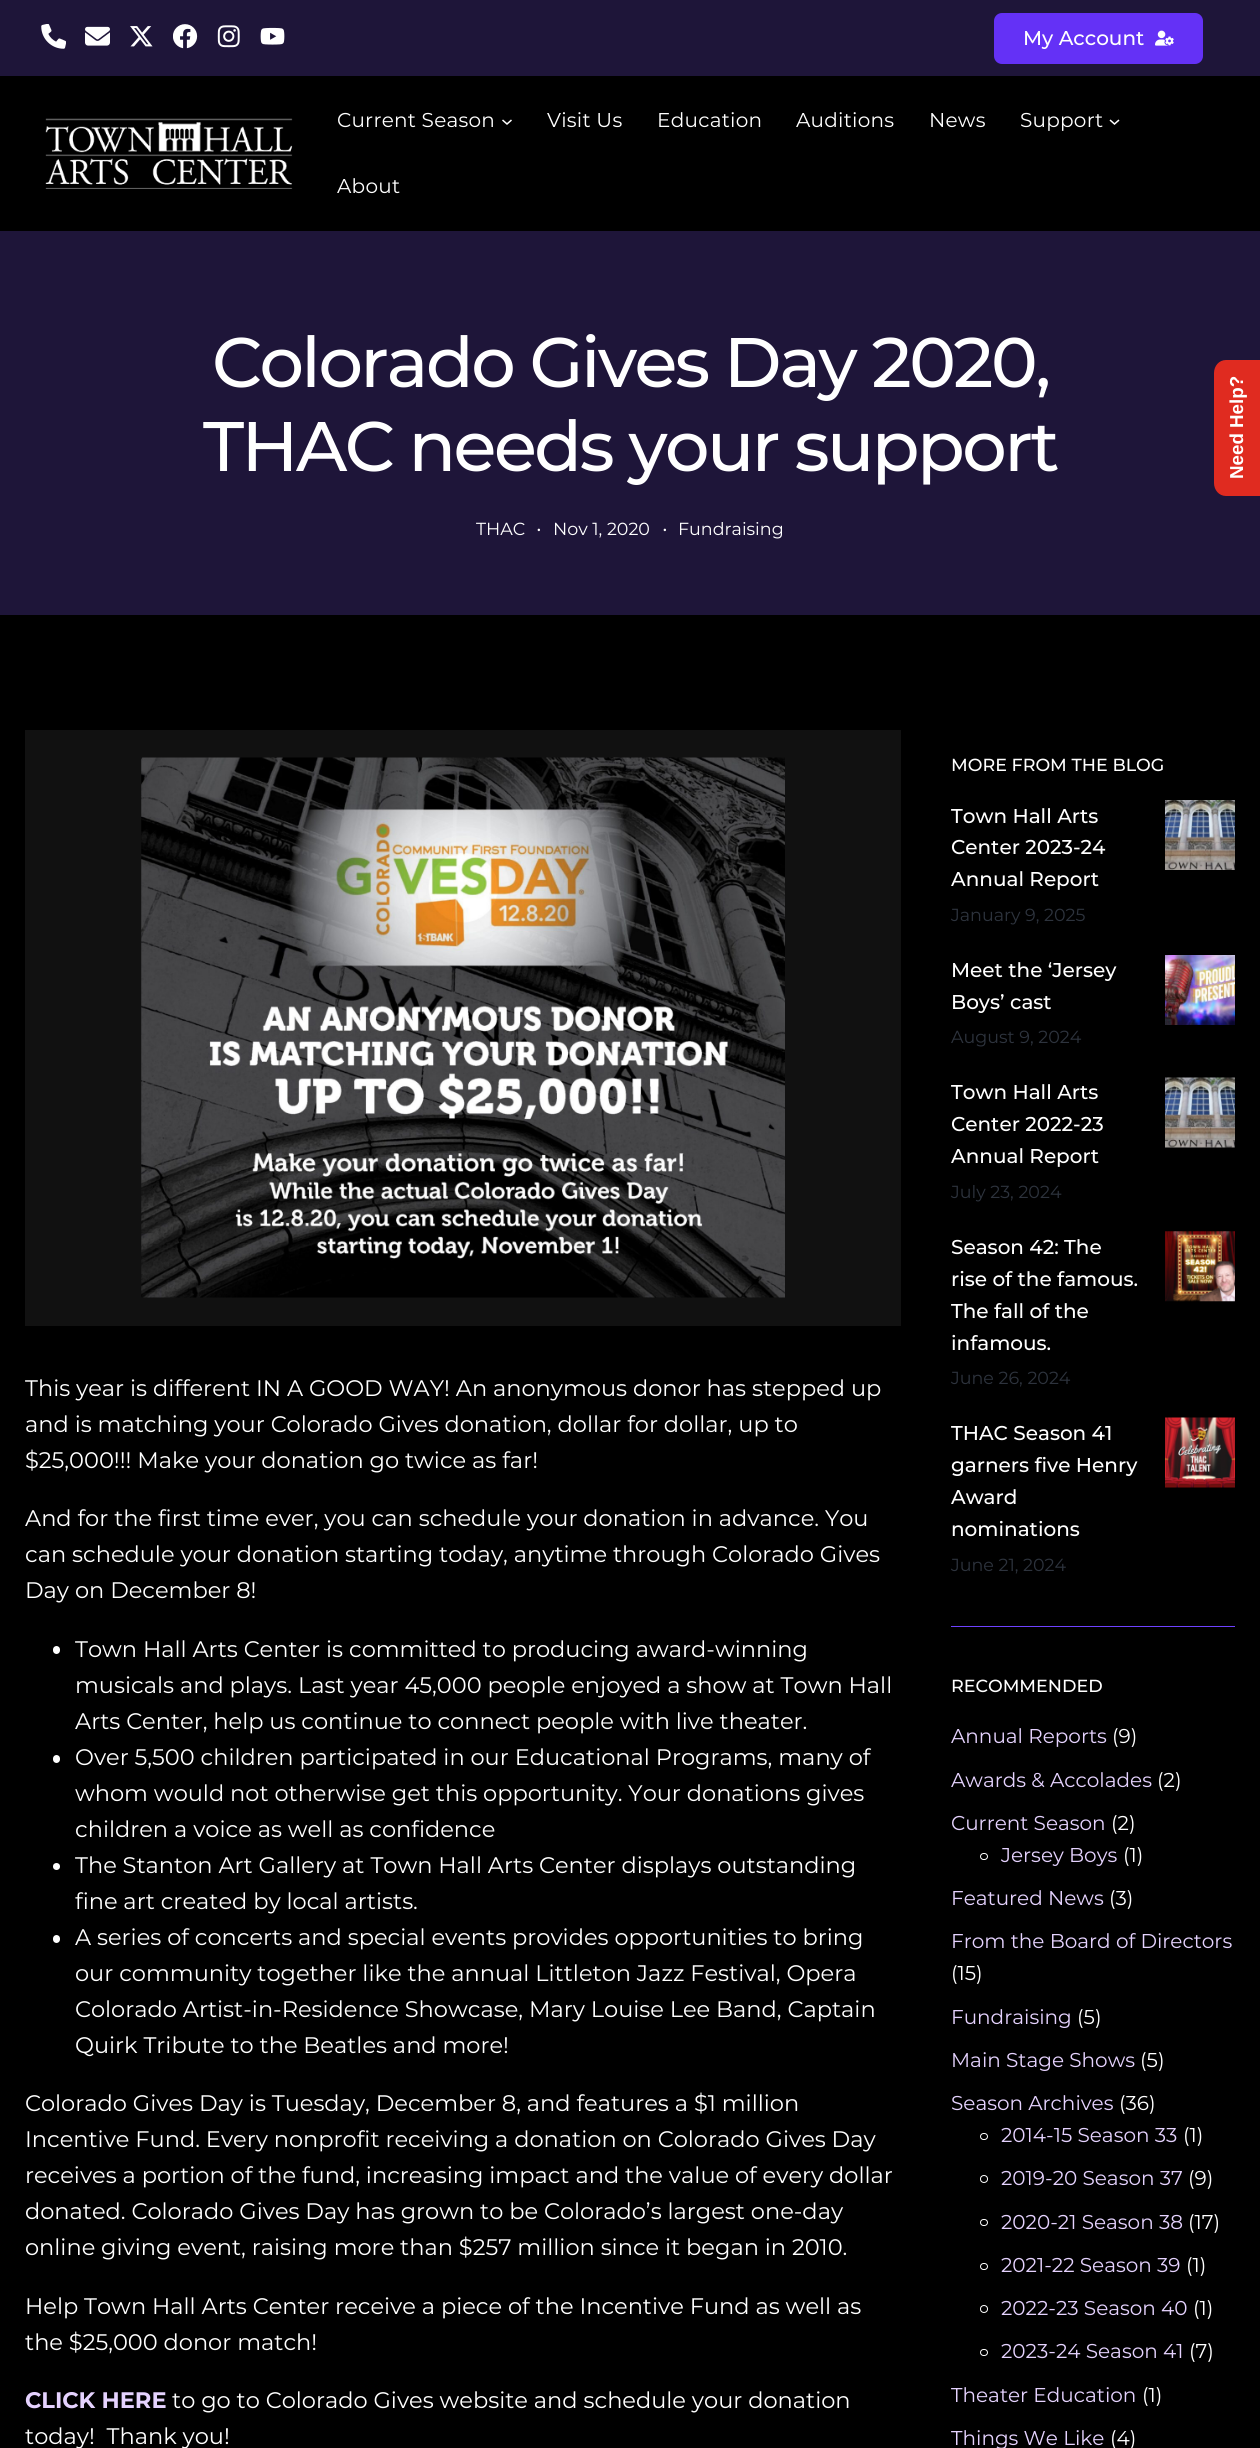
#include <cairo/cairo.h>
#include <math.h>
#include <stddef.h>


static void draw_spaced(cairo_t *cr, double x, double y, const char *s, double letter, double word) {
  cairo_move_to(cr, x, y);
  while (*s) {
    char ch[5] = {0};
    int n = 0;
    do ch[n++] = *s++; while ((*s & 0xC0) == 0x80);
    cairo_show_text(cr, ch);
    cairo_rel_move_to(cr, letter + word * (*ch == ' '), 0);
  }
}

static void rounded_rect(cairo_t *cr, double x, double y, double w, double h, double r) {
  cairo_new_sub_path(cr);
  cairo_arc(cr, x + w - r, y + h - r, r, 0, M_PI / 2);
  cairo_arc(cr, x + r, y + h - r, r, M_PI / 2, M_PI);
  cairo_arc(cr, x + r, y + r, r, M_PI, 1.5 * M_PI);
  cairo_arc(cr, x + w - r, y + r, r, 1.5 * M_PI, 2 * M_PI);
  cairo_close_path(cr);
}

static void draw_image(cairo_t *cr, const char *path, double x, double y, double w, double h) {
  cairo_surface_t *image = cairo_image_surface_create_from_png(path);
  cairo_save(cr);
  cairo_set_source_surface(cr, image, x, y);
  cairo_rectangle(cr, x, y, w, h);
  cairo_fill(cr);
  cairo_restore(cr);
  cairo_surface_destroy(image);
}

static void draw(cairo_t *cr) {
  cairo_set_source_rgb(cr, 0, 0, 0);
  cairo_paint(cr);
  cairo_set_source_rgb(cr, 30 / 255.0, 21 / 255.0, 57 / 255.0);
  cairo_rectangle(cr, 0, 0, 1260, 76);
  cairo_fill(cr);
  draw_image(cr, "images/1.png", 41, 24, 25, 25);
  draw_image(cr, "images/2.png", 85, 26, 25, 20);
  draw_image(cr, "images/3.png", 130, 26, 23, 21);
  draw_image(cr, "images/4.png", 173, 24, 25, 25);
  draw_image(cr, "images/5.png", 217, 25, 23, 23);
  draw_image(cr, "images/6.png", 260, 27, 25, 18);
  cairo_set_source_rgb(cr, 100 / 255.0, 49 / 255.0, 246 / 255.0);
  rounded_rect(cr, 994, 13, 209, 51, 8);
  cairo_fill(cr);
  draw_image(cr, "images/7.png", 1155, 30, 19, 16);
  draw_image(cr, "images/8.png", 45, 118, 248, 71);
  cairo_new_path(cr);
  cairo_move_to(cr, 502.5, 120);
  cairo_line_to(cr, 507, 124);
  cairo_line_to(cr, 511.5, 120);
  cairo_set_source_rgb(cr, 1, 1, 1);
  cairo_set_line_width(cr, 1.5);
  cairo_stroke(cr);
  cairo_new_path(cr);
  cairo_move_to(cr, 1110, 120);
  cairo_line_to(cr, 1114.5, 124);
  cairo_line_to(cr, 1119, 120);
  cairo_stroke(cr);
  cairo_set_source_rgb(cr, 30 / 255.0, 21 / 255.0, 57 / 255.0);
  cairo_rectangle(cr, 0, 231, 1260, 384);
  cairo_fill(cr);
  cairo_set_source_rgb(cr, 17 / 255.0, 17 / 255.0, 17 / 255.0);
  cairo_rectangle(cr, 25, 730, 876, 596);
  cairo_fill(cr);
  draw_image(cr, "images/9.png", 141, 757, 644, 541);
  cairo_set_source_rgb(cr, 1, 1, 1);
  rounded_rect(cr, 53, 1646, 7, 8, 3.5);
  cairo_fill(cr);
  rounded_rect(cr, 53, 1755, 7, 8, 3.5);
  cairo_fill(cr);
  cairo_arc(cr, 56.5, 1866.5, 3.5, 0, 2 * M_PI);
  cairo_fill(cr);
  rounded_rect(cr, 53, 1935, 7, 8, 3.5);
  cairo_fill(cr);
  draw_image(cr, "images/10.png", 1165, 800, 70, 70);
  draw_image(cr, "images/11.png", 1165, 955, 70, 70);
  draw_image(cr, "images/12.png", 1165, 1077, 70, 71);
  draw_image(cr, "images/13.png", 1165, 1231, 70, 71);
  draw_image(cr, "images/14.png", 1165, 1417, 70, 71);
  cairo_set_source_rgb(cr, 110 / 255.0, 66 / 255.0, 1);
  cairo_rectangle(cr, 951, 1626, 284, 1);
  cairo_fill(cr);
  rounded_rect(cr, 980.5, 1853.5, 7, 6, 3);
  cairo_set_source_rgb(cr, 1, 1, 1);
  cairo_set_line_width(cr, 1);
  cairo_stroke(cr);
  rounded_rect(cr, 980.5, 2133.5, 7, 6, 3);
  cairo_stroke(cr);
  cairo_arc(cr, 984, 2179, 3.5, 0, 2 * M_PI);
  cairo_stroke(cr);
  rounded_rect(cr, 980.5, 2219.5, 7, 6, 3);
  cairo_stroke(cr);
  rounded_rect(cr, 980.5, 2263.5, 7, 6, 3);
  cairo_stroke(cr);
  cairo_arc(cr, 984, 2309, 3.5, 0, 2 * M_PI);
  cairo_stroke(cr);
  rounded_rect(cr, 980.5, 2349.5, 7, 6, 3);
  cairo_stroke(cr);
  cairo_set_source_rgb(cr, 224 / 255.0, 43 / 255.0, 32 / 255.0);
  cairo_new_path(cr);
  cairo_move_to(cr, 1214, 483);
  cairo_line_to(cr, 1214, 373);
  cairo_curve_to(cr, 1214, 366, 1219, 360, 1226, 360);
  cairo_line_to(cr, 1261, 360);
  cairo_line_to(cr, 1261, 496);
  cairo_line_to(cr, 1226, 496);
  cairo_curve_to(cr, 1219, 496, 1214, 490, 1214, 483);
  cairo_close_path(cr);
  cairo_fill(cr);
  cairo_select_font_face(cr, "Montserrat Medium", CAIRO_FONT_SLANT_NORMAL, CAIRO_FONT_WEIGHT_NORMAL);
  cairo_set_font_size(cr, 20);
  cairo_set_source_rgb(cr, 1, 1, 1);
  cairo_move_to(cr, 1023, 45);
  cairo_show_text(cr, "My Account");
  cairo_select_font_face(cr, "Montserrat", CAIRO_FONT_SLANT_NORMAL, CAIRO_FONT_WEIGHT_NORMAL);
  draw_spaced(cr, 337, 127, "Current Season", 0.25, 0);
  draw_spaced(cr, 547, 127, "Visit Us", 0.25, 0);
  draw_spaced(cr, 657, 127, "Education", 0.25, 0);
  draw_spaced(cr, 796, 127, "Auditions", 0.25, 0);
  draw_spaced(cr, 929, 127, "News", 0.25, 0);
  draw_spaced(cr, 1020, 127, "Support", 0.25, 0);
  draw_spaced(cr, 337, 193, "About", 0.25, 0);
  cairo_select_font_face(cr, "Montserrat Medium", CAIRO_FONT_SLANT_NORMAL, CAIRO_FONT_WEIGHT_NORMAL);
  cairo_set_font_size(cr, 70);
  draw_spaced(cr, 212, 387, "Colorado Gives Day 2020,", -2.5, 0);
  draw_spaced(cr, 203, 471, "THAC needs your support", -2.5, 0);
  cairo_select_font_face(cr, "Montserrat", CAIRO_FONT_SLANT_NORMAL, CAIRO_FONT_WEIGHT_NORMAL);
  cairo_set_font_size(cr, 17.5);
  cairo_move_to(cr, 476, 535);
  cairo_show_text(cr, "THAC");
  cairo_set_font_size(cr, 22.5);
  cairo_move_to(cr, 536, 536);
  cairo_show_text(cr, "·");
  cairo_set_font_size(cr, 17.5);
  cairo_move_to(cr, 553, 535);
  cairo_show_text(cr, "Nov 1, 2020");
  cairo_set_font_size(cr, 22.5);
  cairo_move_to(cr, 662, 536);
  cairo_show_text(cr, "·");
  cairo_set_font_size(cr, 17.5);
  cairo_move_to(cr, 678, 535);
  cairo_show_text(cr, "Fundraising");
  cairo_set_font_size(cr, 22.5);
  cairo_move_to(cr, 25, 1396);
  cairo_show_text(cr, "This year is different IN A GOOD WAY! An anonymous donor has stepped up");
  cairo_move_to(cr, 25, 1432);
  cairo_show_text(cr, "and is matching your Colorado Gives donation, dollar for dollar, up to");
  cairo_move_to(cr, 25, 1468);
  cairo_show_text(cr, "$25,000!!! Make your donation go twice as far!");
  cairo_move_to(cr, 25, 1526);
  cairo_show_text(cr, "And for the first time ever, you can schedule your donation in advance. You");
  cairo_move_to(cr, 25, 1562);
  cairo_show_text(cr, "can schedule your donation starting today, anytime through Colorado Gives");
  cairo_move_to(cr, 25, 1598);
  cairo_show_text(cr, "Day on December 8!");
  cairo_move_to(cr, 75, 1657);
  cairo_show_text(cr, "Town Hall Arts Center is committed to producing award-winning");
  cairo_move_to(cr, 75, 1693);
  cairo_show_text(cr, "musicals and plays. Last year 45,000 people enjoyed a show at Town Hall");
  cairo_move_to(cr, 75, 1729);
  cairo_show_text(cr, "Arts Center, help us continue to connect people with live theater.");
  cairo_move_to(cr, 75, 1765);
  cairo_show_text(cr, "Over 5,500 children participated in our Educational Programs, many of");
  cairo_move_to(cr, 75, 1801);
  cairo_show_text(cr, "whom would not otherwise get this opportunity. Your donations gives");
  cairo_move_to(cr, 75, 1837);
  cairo_show_text(cr, "children a voice as well as confidence");
  cairo_move_to(cr, 75, 1873);
  cairo_show_text(cr, "The Stanton Art Gallery at Town Hall Arts Center displays outstanding");
  cairo_move_to(cr, 75, 1909);
  cairo_show_text(cr, "fine art created by local artists.");
  cairo_move_to(cr, 75, 1945);
  cairo_show_text(cr, "A series of concerts and special events provides opportunities to bring");
  cairo_move_to(cr, 75, 1981);
  cairo_show_text(cr, "our community together like the annual Littleton Jazz Festival, Opera");
  cairo_move_to(cr, 75, 2017);
  cairo_show_text(cr, "Colorado Artist-in-Residence Showcase, Mary Louise Lee Band, Captain");
  cairo_move_to(cr, 75, 2053);
  cairo_show_text(cr, "Quirk Tribute to the Beatles and more!");
  cairo_move_to(cr, 25, 2111);
  cairo_show_text(cr, "Colorado Gives Day is Tuesday, December 8, and features a $1 million");
  cairo_move_to(cr, 25, 2147);
  cairo_show_text(cr, "Incentive Fund. Every nonprofit receiving a donation on Colorado Gives Day");
  cairo_move_to(cr, 25, 2183);
  cairo_show_text(cr, "receives a portion of the fund, increasing impact and the value of every dollar");
  cairo_move_to(cr, 25, 2219);
  cairo_show_text(cr, "donated. Colorado Gives Day has grown to be Colorado’s largest one-day");
  cairo_move_to(cr, 25, 2255);
  cairo_show_text(cr, "online giving event, raising more than $257 million since it began in 2010.");
  cairo_move_to(cr, 25, 2314);
  cairo_show_text(cr, "Help Town Hall Arts Center receive a piece of the Incentive Fund as well as");
  cairo_move_to(cr, 25, 2350);
  cairo_show_text(cr, "the $25,000 donor match!");
  cairo_select_font_face(cr, "Montserrat", CAIRO_FONT_SLANT_NORMAL, CAIRO_FONT_WEIGHT_BOLD);
  cairo_set_source_rgb(cr, 229 / 255.0, 210 / 255.0, 254 / 255.0);
  cairo_move_to(cr, 25, 2408);
  cairo_show_text(cr, "CLICK HERE");
  cairo_select_font_face(cr, "Montserrat", CAIRO_FONT_SLANT_NORMAL, CAIRO_FONT_WEIGHT_NORMAL);
  cairo_set_source_rgb(cr, 1, 1, 1);
  cairo_move_to(cr, 172, 2408);
  cairo_show_text(cr, "to go to Colorado Gives website and schedule your donation");
  cairo_move_to(cr, 25, 2444);
  cairo_show_text(cr, "today!  Thank you!");
  cairo_select_font_face(cr, "Montserrat Medium", CAIRO_FONT_SLANT_NORMAL, CAIRO_FONT_WEIGHT_NORMAL);
  cairo_set_font_size(cr, 17.5);
  cairo_move_to(cr, 951, 771);
  cairo_show_text(cr, "MORE FROM THE BLOG");
  cairo_set_font_size(cr, 20);
  cairo_move_to(cr, 951, 823);
  cairo_show_text(cr, "Town Hall Arts");
  cairo_move_to(cr, 951, 854);
  cairo_show_text(cr, "Center 2023-24");
  cairo_move_to(cr, 951, 886);
  cairo_show_text(cr, "Annual Report");
  cairo_select_font_face(cr, "Montserrat", CAIRO_FONT_SLANT_NORMAL, CAIRO_FONT_WEIGHT_NORMAL);
  cairo_set_font_size(cr, 17.5);
  cairo_set_source_rgb(cr, 45 / 255.0, 51 / 255.0, 61 / 255.0);
  cairo_move_to(cr, 951, 921);
  cairo_show_text(cr, "January 9, 2025");
  cairo_select_font_face(cr, "Montserrat Medium", CAIRO_FONT_SLANT_NORMAL, CAIRO_FONT_WEIGHT_NORMAL);
  cairo_set_font_size(cr, 20);
  cairo_set_source_rgb(cr, 1, 1, 1);
  cairo_move_to(cr, 951, 977);
  cairo_show_text(cr, "Meet the ‘Jersey");
  cairo_move_to(cr, 951, 1009);
  cairo_show_text(cr, "Boys’ cast");
  cairo_select_font_face(cr, "Montserrat", CAIRO_FONT_SLANT_NORMAL, CAIRO_FONT_WEIGHT_NORMAL);
  cairo_set_font_size(cr, 17.5);
  cairo_set_source_rgb(cr, 45 / 255.0, 51 / 255.0, 61 / 255.0);
  cairo_move_to(cr, 951, 1043);
  cairo_show_text(cr, "August 9, 2024");
  cairo_select_font_face(cr, "Montserrat Medium", CAIRO_FONT_SLANT_NORMAL, CAIRO_FONT_WEIGHT_NORMAL);
  cairo_set_font_size(cr, 20);
  cairo_set_source_rgb(cr, 1, 1, 1);
  cairo_move_to(cr, 951, 1099);
  cairo_show_text(cr, "Town Hall Arts");
  cairo_move_to(cr, 951, 1131);
  cairo_show_text(cr, "Center 2022-23");
  cairo_move_to(cr, 951, 1163);
  cairo_show_text(cr, "Annual Report");
  cairo_select_font_face(cr, "Montserrat", CAIRO_FONT_SLANT_NORMAL, CAIRO_FONT_WEIGHT_NORMAL);
  cairo_set_font_size(cr, 17.5);
  cairo_set_source_rgb(cr, 45 / 255.0, 51 / 255.0, 61 / 255.0);
  cairo_move_to(cr, 951, 1198);
  cairo_show_text(cr, "July 23, 2024");
  cairo_select_font_face(cr, "Montserrat Medium", CAIRO_FONT_SLANT_NORMAL, CAIRO_FONT_WEIGHT_NORMAL);
  cairo_set_font_size(cr, 20);
  cairo_set_source_rgb(cr, 1, 1, 1);
  cairo_move_to(cr, 951, 1254);
  cairo_show_text(cr, "Season 42: The");
  cairo_move_to(cr, 951, 1286);
  cairo_show_text(cr, "rise of the famous.");
  cairo_move_to(cr, 951, 1318);
  cairo_show_text(cr, "The fall of the");
  cairo_move_to(cr, 951, 1350);
  cairo_show_text(cr, "infamous.");
  cairo_select_font_face(cr, "Montserrat", CAIRO_FONT_SLANT_NORMAL, CAIRO_FONT_WEIGHT_NORMAL);
  cairo_set_font_size(cr, 17.5);
  cairo_set_source_rgb(cr, 45 / 255.0, 51 / 255.0, 61 / 255.0);
  cairo_move_to(cr, 951, 1384);
  cairo_show_text(cr, "June 26, 2024");
  cairo_select_font_face(cr, "Montserrat Medium", CAIRO_FONT_SLANT_NORMAL, CAIRO_FONT_WEIGHT_NORMAL);
  cairo_set_font_size(cr, 20);
  cairo_set_source_rgb(cr, 1, 1, 1);
  cairo_move_to(cr, 951, 1440);
  cairo_show_text(cr, "THAC Season 41");
  cairo_move_to(cr, 951, 1472);
  cairo_show_text(cr, "garners five Henry");
  cairo_move_to(cr, 951, 1504);
  cairo_show_text(cr, "Award");
  cairo_move_to(cr, 951, 1536);
  cairo_show_text(cr, "nominations");
  cairo_select_font_face(cr, "Montserrat", CAIRO_FONT_SLANT_NORMAL, CAIRO_FONT_WEIGHT_NORMAL);
  cairo_set_font_size(cr, 17.5);
  cairo_set_source_rgb(cr, 45 / 255.0, 51 / 255.0, 61 / 255.0);
  cairo_move_to(cr, 951, 1571);
  cairo_show_text(cr, "June 21, 2024");
  cairo_select_font_face(cr, "Montserrat Medium", CAIRO_FONT_SLANT_NORMAL, CAIRO_FONT_WEIGHT_NORMAL);
  cairo_set_source_rgb(cr, 1, 1, 1);
  cairo_move_to(cr, 951, 1692);
  cairo_show_text(cr, "RECOMMENDED");
  cairo_select_font_face(cr, "Montserrat", CAIRO_FONT_SLANT_NORMAL, CAIRO_FONT_WEIGHT_NORMAL);
  cairo_set_font_size(cr, 20);
  cairo_set_source_rgb(cr, 229 / 255.0, 210 / 255.0, 254 / 255.0);
  cairo_move_to(cr, 951, 1743);
  cairo_show_text(cr, "Annual Reports");
  cairo_set_source_rgb(cr, 1, 1, 1);
  cairo_move_to(cr, 1112, 1743);
  cairo_show_text(cr, "(9)");
  cairo_set_source_rgb(cr, 229 / 255.0, 210 / 255.0, 254 / 255.0);
  cairo_move_to(cr, 951, 1787);
  cairo_show_text(cr, "Awards & Accolades");
  cairo_set_source_rgb(cr, 1, 1, 1);
  cairo_move_to(cr, 1157, 1787);
  cairo_show_text(cr, "(2)");
  cairo_set_source_rgb(cr, 229 / 255.0, 210 / 255.0, 254 / 255.0);
  cairo_move_to(cr, 951, 1830);
  cairo_show_text(cr, "Current Season");
  cairo_set_source_rgb(cr, 1, 1, 1);
  cairo_move_to(cr, 1111, 1830);
  cairo_show_text(cr, "(2)");
  cairo_set_source_rgb(cr, 229 / 255.0, 210 / 255.0, 254 / 255.0);
  cairo_move_to(cr, 1001, 1862);
  cairo_show_text(cr, "Jersey Boys");
  cairo_set_source_rgb(cr, 1, 1, 1);
  cairo_move_to(cr, 1123, 1862);
  cairo_show_text(cr, "(1)");
  cairo_set_source_rgb(cr, 229 / 255.0, 210 / 255.0, 254 / 255.0);
  cairo_move_to(cr, 951, 1905);
  cairo_show_text(cr, "Featured News");
  cairo_set_source_rgb(cr, 1, 1, 1);
  cairo_move_to(cr, 1109, 1905);
  cairo_show_text(cr, "(3)");
  cairo_set_source_rgb(cr, 229 / 255.0, 210 / 255.0, 254 / 255.0);
  cairo_move_to(cr, 951, 1948);
  cairo_show_text(cr, "From the Board of Directors");
  cairo_set_source_rgb(cr, 1, 1, 1);
  cairo_move_to(cr, 951, 1980);
  cairo_show_text(cr, "(15)");
  cairo_set_source_rgb(cr, 229 / 255.0, 210 / 255.0, 254 / 255.0);
  cairo_move_to(cr, 951, 2024);
  cairo_show_text(cr, "Fundraising");
  cairo_set_source_rgb(cr, 1, 1, 1);
  cairo_move_to(cr, 1077, 2024);
  cairo_show_text(cr, "(5)");
  cairo_set_source_rgb(cr, 229 / 255.0, 210 / 255.0, 254 / 255.0);
  cairo_move_to(cr, 951, 2067);
  cairo_show_text(cr, "Main Stage Shows");
  cairo_set_source_rgb(cr, 1, 1, 1);
  cairo_move_to(cr, 1140, 2067);
  cairo_show_text(cr, "(5)");
  cairo_set_source_rgb(cr, 229 / 255.0, 210 / 255.0, 254 / 255.0);
  cairo_move_to(cr, 951, 2110);
  cairo_show_text(cr, "Season Archives");
  cairo_set_source_rgb(cr, 1, 1, 1);
  cairo_move_to(cr, 1119, 2110);
  cairo_show_text(cr, "(36)");
  cairo_set_source_rgb(cr, 229 / 255.0, 210 / 255.0, 254 / 255.0);
  cairo_move_to(cr, 1001, 2142);
  cairo_show_text(cr, "2014-15 Season 33");
  cairo_set_source_rgb(cr, 1, 1, 1);
  cairo_move_to(cr, 1183, 2142);
  cairo_show_text(cr, "(1)");
  cairo_set_source_rgb(cr, 229 / 255.0, 210 / 255.0, 254 / 255.0);
  cairo_move_to(cr, 1001, 2185);
  cairo_show_text(cr, "2019-20 Season 37");
  cairo_set_source_rgb(cr, 1, 1, 1);
  cairo_move_to(cr, 1188, 2185);
  cairo_show_text(cr, "(9)");
  cairo_set_source_rgb(cr, 229 / 255.0, 210 / 255.0, 254 / 255.0);
  cairo_move_to(cr, 1001, 2229);
  cairo_show_text(cr, "2020-21 Season 38");
  cairo_set_source_rgb(cr, 1, 1, 1);
  cairo_move_to(cr, 1188, 2229);
  cairo_show_text(cr, "(17)");
  cairo_set_source_rgb(cr, 229 / 255.0, 210 / 255.0, 254 / 255.0);
  cairo_move_to(cr, 1001, 2272);
  cairo_show_text(cr, "2021-22 Season 39");
  cairo_set_source_rgb(cr, 1, 1, 1);
  cairo_move_to(cr, 1186, 2272);
  cairo_show_text(cr, "(1)");
  cairo_set_source_rgb(cr, 229 / 255.0, 210 / 255.0, 254 / 255.0);
  cairo_move_to(cr, 1001, 2315);
  cairo_show_text(cr, "2022-23 Season 40");
  cairo_set_source_rgb(cr, 1, 1, 1);
  cairo_move_to(cr, 1193, 2315);
  cairo_show_text(cr, "(1)");
  cairo_set_source_rgb(cr, 229 / 255.0, 210 / 255.0, 254 / 255.0);
  cairo_move_to(cr, 1001, 2358);
  cairo_show_text(cr, "2023-24 Season 41");
  cairo_set_source_rgb(cr, 1, 1, 1);
  cairo_move_to(cr, 1189, 2358);
  cairo_show_text(cr, "(7)");
  cairo_set_source_rgb(cr, 229 / 255.0, 210 / 255.0, 254 / 255.0);
  cairo_move_to(cr, 951, 2402);
  cairo_show_text(cr, "Theater Education");
  cairo_set_source_rgb(cr, 1, 1, 1);
  cairo_move_to(cr, 1142, 2402);
  cairo_show_text(cr, "(1)");
  cairo_set_source_rgb(cr, 229 / 255.0, 210 / 255.0, 254 / 255.0);
  cairo_move_to(cr, 951, 2445);
  cairo_show_text(cr, "Things We Like");
  cairo_set_source_rgb(cr, 1, 1, 1);
  cairo_move_to(cr, 1110, 2445);
  cairo_show_text(cr, "(4)");
  cairo_select_font_face(cr, "Liberation Sans", CAIRO_FONT_SLANT_NORMAL, CAIRO_FONT_WEIGHT_BOLD);
  cairo_set_font_size(cr, 18.75);
  cairo_save(cr);
  cairo_translate(cr, 1243, 479);
  cairo_rotate(cr, -90 * M_PI / 180);
  cairo_move_to(cr, 0, 0);
  cairo_show_text(cr, "Need Help?");
  cairo_restore(cr);
}

int main(void) {
  cairo_surface_t *surface = cairo_image_surface_create(CAIRO_FORMAT_RGB24, 1260, 2448);
  cairo_t *cr = cairo_create(surface);
  cairo_font_options_t *options = cairo_font_options_create();
  cairo_font_options_set_hint_metrics(options, CAIRO_HINT_METRICS_OFF);
  cairo_font_options_set_hint_style(options, CAIRO_HINT_STYLE_NONE);
  cairo_set_font_options(cr, options);
  cairo_set_miter_limit(cr, 4);
  draw(cr);
  cairo_surface_write_to_png(surface, "out.png");
  cairo_font_options_destroy(options);
  cairo_destroy(cr);
  cairo_surface_destroy(surface);
  return 0;
}
